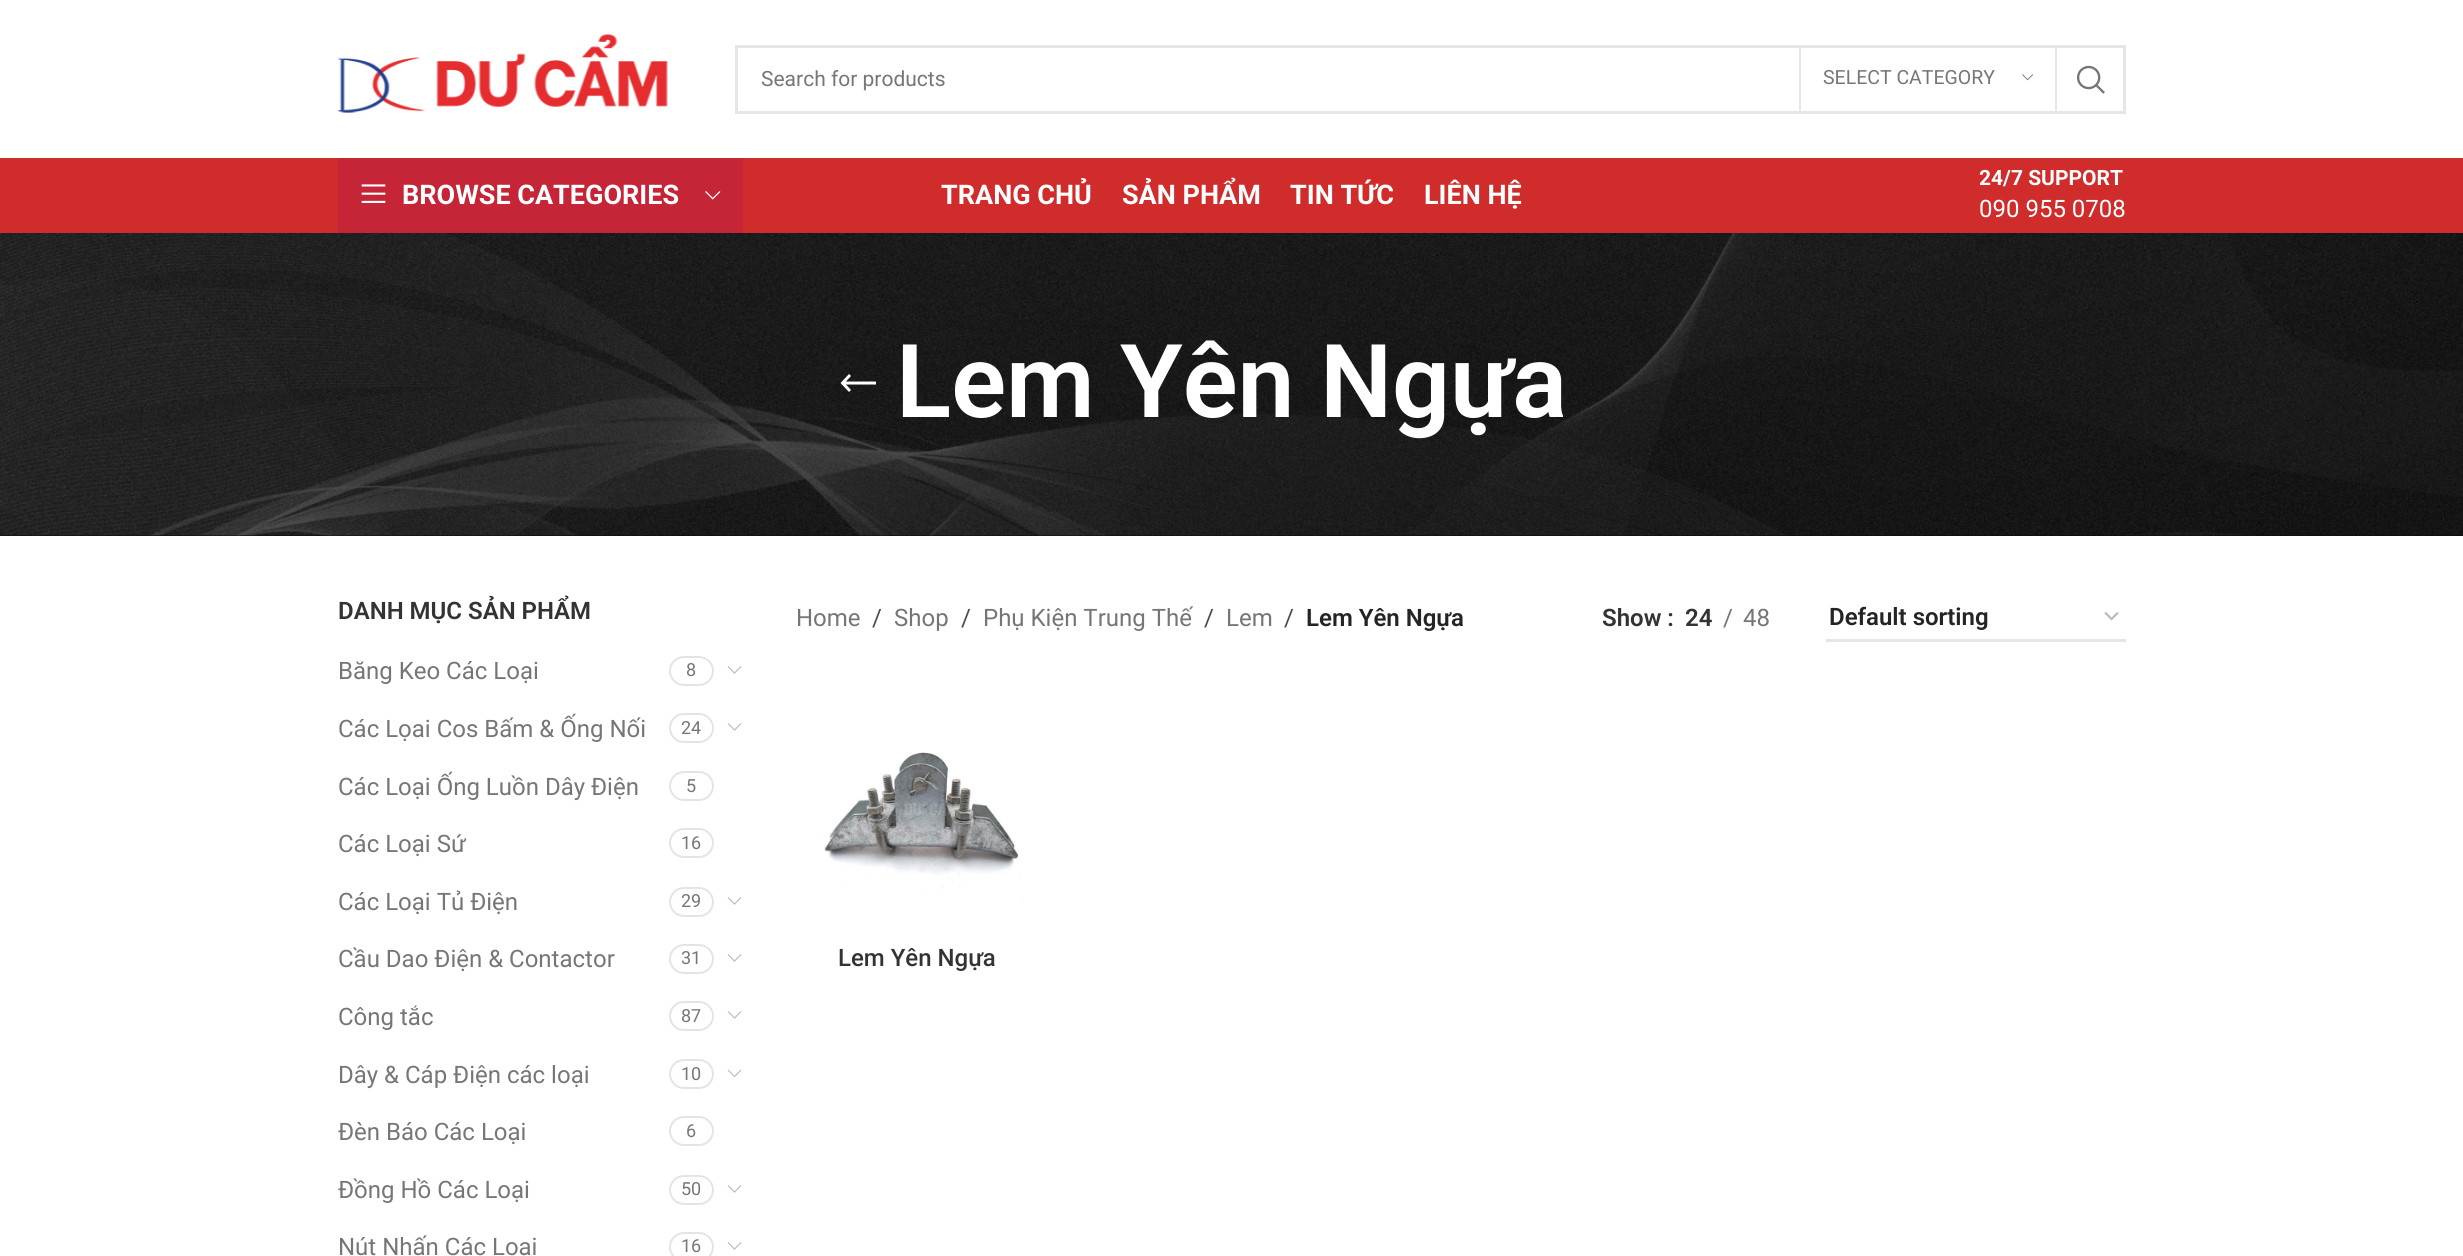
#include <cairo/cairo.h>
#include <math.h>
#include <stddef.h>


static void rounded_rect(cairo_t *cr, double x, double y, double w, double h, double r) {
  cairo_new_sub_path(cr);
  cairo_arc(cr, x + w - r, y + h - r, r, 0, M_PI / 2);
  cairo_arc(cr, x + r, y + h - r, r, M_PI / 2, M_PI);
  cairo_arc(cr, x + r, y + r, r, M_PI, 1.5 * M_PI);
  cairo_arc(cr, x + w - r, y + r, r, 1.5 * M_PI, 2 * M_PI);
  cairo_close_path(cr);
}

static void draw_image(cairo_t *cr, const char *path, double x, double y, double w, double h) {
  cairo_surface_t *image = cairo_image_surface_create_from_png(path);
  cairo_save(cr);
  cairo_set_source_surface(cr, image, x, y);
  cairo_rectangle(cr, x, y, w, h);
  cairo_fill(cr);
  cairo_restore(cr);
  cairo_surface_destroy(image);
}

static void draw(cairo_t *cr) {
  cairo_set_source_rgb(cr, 1, 1, 1);
  cairo_paint(cr);
  draw_image(cr, "images/1.png", 337, 34, 331, 79);
  cairo_rectangle(cr, 736.5, 46.5, 1388, 66);
  cairo_set_source_rgb(cr, 230 / 255.0, 230 / 255.0, 230 / 255.0);
  cairo_set_line_width(cr, 3);
  cairo_stroke(cr);
  cairo_rectangle(cr, 2055, 48, 2, 63);
  cairo_fill(cr);
  cairo_rectangle(cr, 1799, 48, 2, 63);
  cairo_fill(cr);
  draw_image(cr, "images/2.png", 2022, 74, 12, 7);
  draw_image(cr, "images/3.png", 2076, 65, 29, 29);
  cairo_set_source_rgb(cr, 209 / 255.0, 44 / 255.0, 44 / 255.0);
  cairo_rectangle(cr, 0, 158, 2463, 75);
  cairo_fill(cr);
  cairo_set_source_rgb(cr, 198 / 255.0, 36 / 255.0, 55 / 255.0);
  cairo_rectangle(cr, 338, 158, 405, 75);
  cairo_fill(cr);
  draw_image(cr, "images/4.png", 361, 184, 25, 19);
  draw_image(cr, "images/5.png", 705, 191, 16, 9);
  cairo_set_source_rgb(cr, 10 / 255.0, 10 / 255.0, 10 / 255.0);
  cairo_rectangle(cr, 0, 535, 2463, 1);
  cairo_fill(cr);
  draw_image(cr, "images/6.png", 0, 233, 2463, 303);
  cairo_set_source_rgb(cr, 1, 1, 1);
  cairo_new_path(cr);
  cairo_move_to(cr, 851, 390);
  cairo_line_to(cr, 846, 384.5);
  cairo_line_to(cr, 876, 384.5);
  cairo_line_to(cr, 876, 381.5);
  cairo_line_to(cr, 846, 381.5);
  cairo_line_to(cr, 851, 376);
  cairo_line_to(cr, 849, 374);
  cairo_line_to(cr, 840.5, 383);
  cairo_line_to(cr, 849, 392);
  cairo_close_path(cr);
  cairo_fill(cr);
  rounded_rect(cr, 670, 657, 43, 28, 14);
  cairo_set_source_rgb(cr, 228 / 255.0, 228 / 255.0, 228 / 255.0);
  cairo_set_line_width(cr, 2);
  cairo_stroke(cr);
  draw_image(cr, "images/7.png", 727, 666, 15, 8);
  rounded_rect(cr, 670, 714, 43, 28, 14);
  cairo_stroke(cr);
  draw_image(cr, "images/7.png", 727, 723, 15, 8);
  rounded_rect(cr, 670, 772, 43, 28, 14);
  cairo_stroke(cr);
  rounded_rect(cr, 670, 829, 43, 28, 14);
  cairo_stroke(cr);
  rounded_rect(cr, 670, 888, 43, 28, 14);
  cairo_stroke(cr);
  draw_image(cr, "images/7.png", 727, 897, 15, 8);
  rounded_rect(cr, 670, 945, 43, 28, 14);
  cairo_stroke(cr);
  draw_image(cr, "images/7.png", 727, 954, 15, 8);
  rounded_rect(cr, 670, 1002, 43, 28, 14);
  cairo_stroke(cr);
  draw_image(cr, "images/7.png", 727, 1011, 15, 8);
  rounded_rect(cr, 670, 1060, 43, 28, 14);
  cairo_stroke(cr);
  draw_image(cr, "images/8.png", 727, 1069, 15, 9);
  rounded_rect(cr, 670, 1117, 43, 28, 14);
  cairo_stroke(cr);
  rounded_rect(cr, 670, 1176, 43, 28, 14);
  cairo_stroke(cr);
  draw_image(cr, "images/7.png", 727, 1185, 15, 8);
  rounded_rect(cr, 670, 1233, 43, 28, 14);
  cairo_stroke(cr);
  draw_image(cr, "images/7.png", 727, 1242, 15, 8);
  cairo_new_path(cr);
  cairo_move_to(cr, 2105, 612.5);
  cairo_line_to(cr, 2111.5, 619);
  cairo_line_to(cr, 2118, 612.5);
  cairo_set_source_rgb(cr, 187 / 255.0, 187 / 255.0, 187 / 255.0);
  cairo_set_line_width(cr, 2.2);
  cairo_stroke(cr);
  cairo_set_source_rgb(cr, 230 / 255.0, 230 / 255.0, 230 / 255.0);
  cairo_rectangle(cr, 1826, 639, 300, 3);
  cairo_fill(cr);
  draw_image(cr, "images/9.png", 824, 752, 200, 148);
  cairo_select_font_face(cr, "Roboto", CAIRO_FONT_SLANT_NORMAL, CAIRO_FONT_WEIGHT_NORMAL);
  cairo_set_font_size(cr, 21);
  cairo_set_source_rgb(cr, 118 / 255.0, 118 / 255.0, 118 / 255.0);
  cairo_move_to(cr, 761, 86);
  cairo_show_text(cr, "Search for products");
  cairo_set_font_size(cr, 19.5);
  cairo_move_to(cr, 1823, 84);
  cairo_show_text(cr, "SELECT CATEGORY");
  cairo_select_font_face(cr, "Roboto", CAIRO_FONT_SLANT_NORMAL, CAIRO_FONT_WEIGHT_BOLD);
  cairo_set_font_size(cr, 27);
  cairo_set_source_rgb(cr, 1, 1, 1);
  cairo_move_to(cr, 402, 204);
  cairo_show_text(cr, "BROWSE CATEGORIES");
  cairo_move_to(cr, 941, 204);
  cairo_show_text(cr, "TRANG CHỦ");
  cairo_move_to(cr, 1122, 204);
  cairo_show_text(cr, "SẢN PHẨM");
  cairo_move_to(cr, 1290, 204);
  cairo_show_text(cr, "TIN TỨC");
  cairo_move_to(cr, 1424, 204);
  cairo_show_text(cr, "LIÊN HỆ");
  cairo_set_font_size(cr, 21);
  cairo_move_to(cr, 1979, 185);
  cairo_show_text(cr, "24/7 SUPPORT");
  cairo_select_font_face(cr, "Roboto", CAIRO_FONT_SLANT_NORMAL, CAIRO_FONT_WEIGHT_NORMAL);
  cairo_set_font_size(cr, 24);
  cairo_move_to(cr, 1979, 217);
  cairo_show_text(cr, "090 955 0708");
  cairo_select_font_face(cr, "Roboto SemiBold", CAIRO_FONT_SLANT_NORMAL, CAIRO_FONT_WEIGHT_NORMAL);
  cairo_set_font_size(cr, 102);
  cairo_move_to(cr, 896, 417);
  cairo_show_text(cr, "Lem Yên Ngựa");
  cairo_set_font_size(cr, 24);
  cairo_set_source_rgb(cr, 51 / 255.0, 51 / 255.0, 51 / 255.0);
  cairo_move_to(cr, 338, 619);
  cairo_show_text(cr, "DANH MỤC SẢN PHẨM");
  cairo_select_font_face(cr, "Roboto", CAIRO_FONT_SLANT_NORMAL, CAIRO_FONT_WEIGHT_NORMAL);
  cairo_set_source_rgb(cr, 118 / 255.0, 118 / 255.0, 118 / 255.0);
  cairo_move_to(cr, 338, 679);
  cairo_show_text(cr, "Băng Keo Các Loại");
  cairo_set_font_size(cr, 18);
  cairo_move_to(cr, 686, 676);
  cairo_show_text(cr, "8");
  cairo_set_font_size(cr, 24);
  cairo_move_to(cr, 338, 737);
  cairo_show_text(cr, "Các Lọai Cos Bấm & Ống Nối");
  cairo_set_font_size(cr, 18);
  cairo_move_to(cr, 681, 734);
  cairo_show_text(cr, "24");
  cairo_set_font_size(cr, 24);
  cairo_move_to(cr, 338, 795);
  cairo_show_text(cr, "Các Loại Ống Luồn Dây Điện");
  cairo_set_font_size(cr, 18);
  cairo_move_to(cr, 686, 792);
  cairo_show_text(cr, "5");
  cairo_set_font_size(cr, 24);
  cairo_move_to(cr, 338, 852);
  cairo_show_text(cr, "Các Loại Sứ");
  cairo_set_font_size(cr, 18);
  cairo_move_to(cr, 681, 849);
  cairo_show_text(cr, "16");
  cairo_set_font_size(cr, 24);
  cairo_move_to(cr, 338, 910);
  cairo_show_text(cr, "Các Loại Tủ Điện");
  cairo_set_font_size(cr, 18);
  cairo_move_to(cr, 681, 907);
  cairo_show_text(cr, "29");
  cairo_set_font_size(cr, 24);
  cairo_move_to(cr, 338, 967);
  cairo_show_text(cr, "Cầu Dao Điện & Contactor");
  cairo_set_font_size(cr, 18);
  cairo_move_to(cr, 681, 964);
  cairo_show_text(cr, "31");
  cairo_set_font_size(cr, 24);
  cairo_move_to(cr, 338, 1025);
  cairo_show_text(cr, "Công tắc");
  cairo_set_font_size(cr, 18);
  cairo_move_to(cr, 681, 1022);
  cairo_show_text(cr, "87");
  cairo_set_font_size(cr, 24);
  cairo_move_to(cr, 338, 1083);
  cairo_show_text(cr, "Dây & Cáp Điện các loại");
  cairo_set_font_size(cr, 18);
  cairo_move_to(cr, 681, 1080);
  cairo_show_text(cr, "10");
  cairo_set_font_size(cr, 24);
  cairo_move_to(cr, 338, 1140);
  cairo_show_text(cr, "Đèn Báo Các Loại");
  cairo_set_font_size(cr, 18);
  cairo_move_to(cr, 686, 1137);
  cairo_show_text(cr, "6");
  cairo_set_font_size(cr, 24);
  cairo_move_to(cr, 338, 1198);
  cairo_show_text(cr, "Đồng Hồ Các Loại");
  cairo_set_font_size(cr, 18);
  cairo_move_to(cr, 681, 1195);
  cairo_show_text(cr, "50");
  cairo_set_font_size(cr, 24);
  cairo_move_to(cr, 338, 1255);
  cairo_show_text(cr, "Nút Nhấn Các Loại");
  cairo_set_font_size(cr, 18);
  cairo_move_to(cr, 681, 1252);
  cairo_show_text(cr, "16");
  cairo_set_font_size(cr, 24);
  cairo_move_to(cr, 796, 626);
  cairo_show_text(cr, "Home");
  cairo_set_source_rgb(cr, 77 / 255.0, 77 / 255.0, 77 / 255.0);
  cairo_move_to(cr, 872, 626);
  cairo_show_text(cr, "/");
  cairo_set_source_rgb(cr, 118 / 255.0, 118 / 255.0, 118 / 255.0);
  cairo_move_to(cr, 894, 626);
  cairo_show_text(cr, "Shop");
  cairo_set_source_rgb(cr, 77 / 255.0, 77 / 255.0, 77 / 255.0);
  cairo_move_to(cr, 961, 626);
  cairo_show_text(cr, "/");
  cairo_set_source_rgb(cr, 118 / 255.0, 118 / 255.0, 118 / 255.0);
  cairo_move_to(cr, 983, 626);
  cairo_show_text(cr, "Phụ Kiện Trung Thế");
  cairo_set_source_rgb(cr, 77 / 255.0, 77 / 255.0, 77 / 255.0);
  cairo_move_to(cr, 1204, 626);
  cairo_show_text(cr, "/");
  cairo_set_source_rgb(cr, 118 / 255.0, 118 / 255.0, 118 / 255.0);
  cairo_move_to(cr, 1226, 626);
  cairo_show_text(cr, "Lem");
  cairo_set_source_rgb(cr, 77 / 255.0, 77 / 255.0, 77 / 255.0);
  cairo_move_to(cr, 1284, 626);
  cairo_show_text(cr, "/");
  cairo_select_font_face(cr, "Roboto SemiBold", CAIRO_FONT_SLANT_NORMAL, CAIRO_FONT_WEIGHT_NORMAL);
  cairo_set_source_rgb(cr, 36 / 255.0, 36 / 255.0, 36 / 255.0);
  cairo_move_to(cr, 1306, 626);
  cairo_show_text(cr, "Lem Yên Ngựa");
  cairo_set_source_rgb(cr, 51 / 255.0, 51 / 255.0, 51 / 255.0);
  cairo_move_to(cr, 1602, 626);
  cairo_show_text(cr, "Show :");
  cairo_move_to(cr, 1685, 626);
  cairo_show_text(cr, "24");
  cairo_select_font_face(cr, "Roboto", CAIRO_FONT_SLANT_NORMAL, CAIRO_FONT_WEIGHT_NORMAL);
  cairo_set_source_rgb(cr, 118 / 255.0, 118 / 255.0, 118 / 255.0);
  cairo_move_to(cr, 1723, 626);
  cairo_show_text(cr, "/");
  cairo_move_to(cr, 1743, 626);
  cairo_show_text(cr, "48");
  cairo_select_font_face(cr, "Roboto SemiBold", CAIRO_FONT_SLANT_NORMAL, CAIRO_FONT_WEIGHT_NORMAL);
  cairo_set_source_rgb(cr, 36 / 255.0, 36 / 255.0, 36 / 255.0);
  cairo_move_to(cr, 1829, 625);
  cairo_show_text(cr, "Default sorting");
  cairo_select_font_face(cr, "Roboto Medium", CAIRO_FONT_SLANT_NORMAL, CAIRO_FONT_WEIGHT_NORMAL);
  cairo_set_source_rgb(cr, 51 / 255.0, 51 / 255.0, 51 / 255.0);
  cairo_move_to(cr, 838, 966);
  cairo_show_text(cr, "Lem Yên Ngựa");
}

int main(void) {
  cairo_surface_t *surface = cairo_image_surface_create(CAIRO_FORMAT_RGB24, 2463, 1256);
  cairo_t *cr = cairo_create(surface);
  cairo_font_options_t *options = cairo_font_options_create();
  cairo_font_options_set_hint_metrics(options, CAIRO_HINT_METRICS_OFF);
  cairo_font_options_set_hint_style(options, CAIRO_HINT_STYLE_NONE);
  cairo_set_font_options(cr, options);
  cairo_set_miter_limit(cr, 4);
  draw(cr);
  cairo_surface_write_to_png(surface, "out.png");
  cairo_font_options_destroy(options);
  cairo_destroy(cr);
  cairo_surface_destroy(surface);
  return 0;
}
